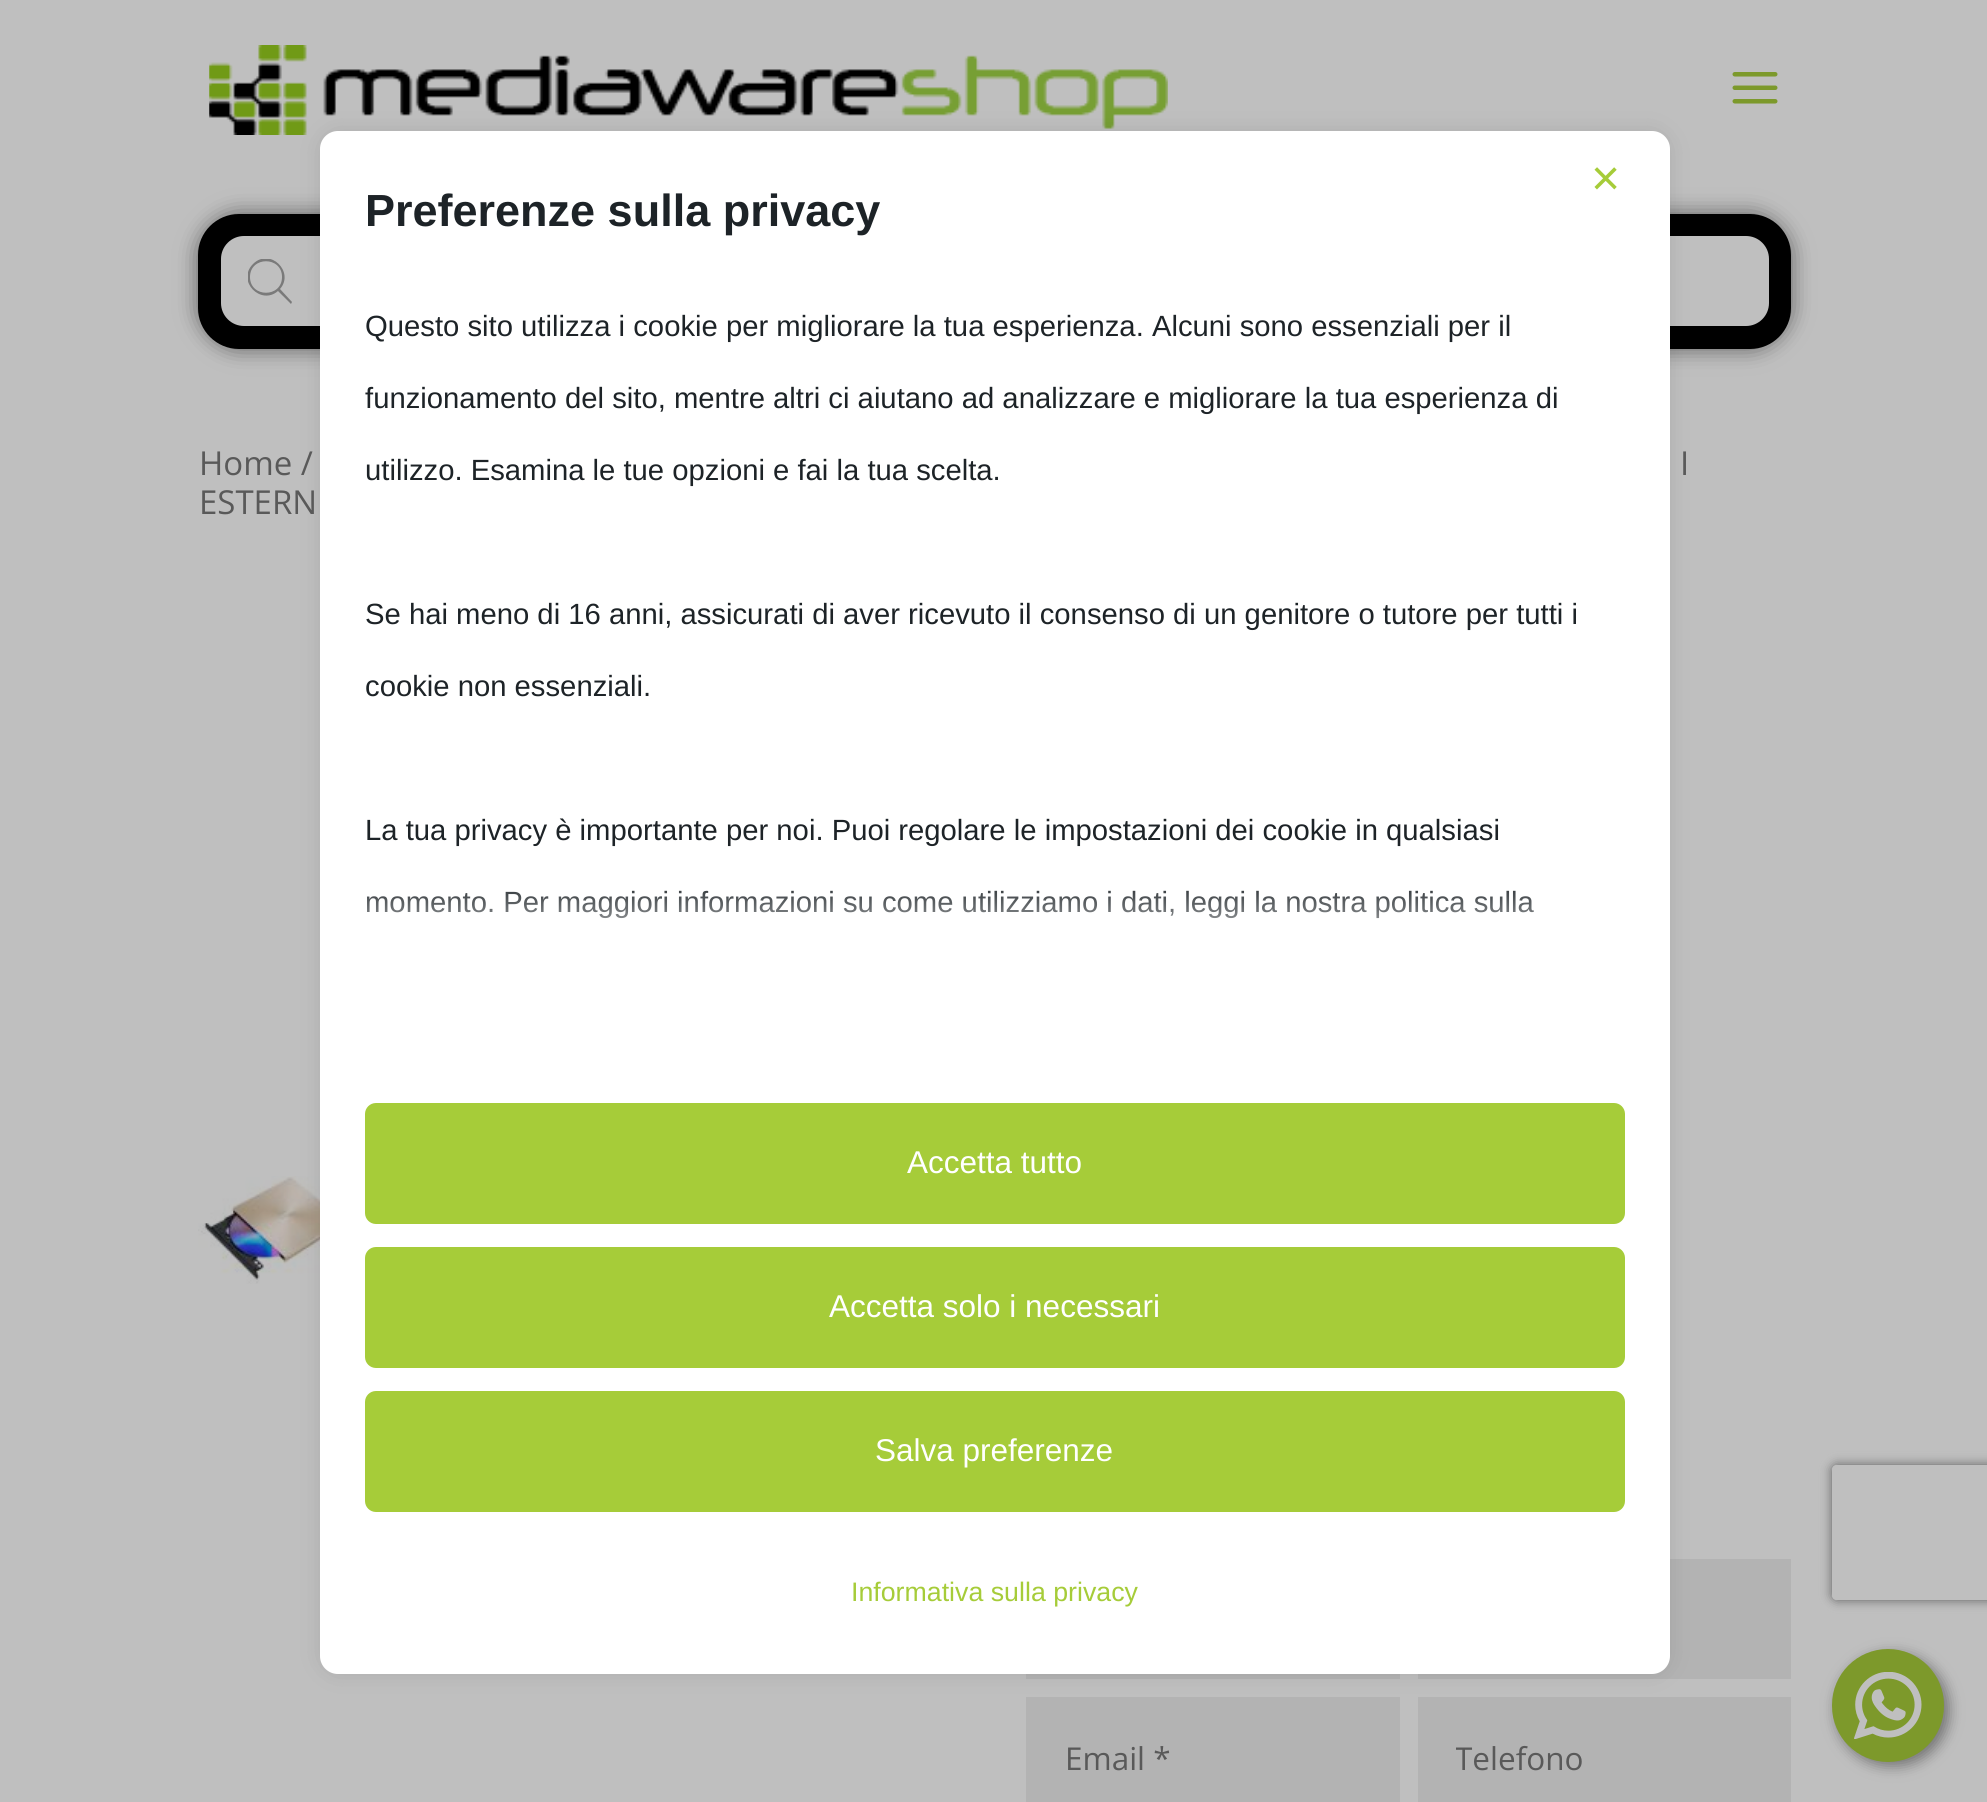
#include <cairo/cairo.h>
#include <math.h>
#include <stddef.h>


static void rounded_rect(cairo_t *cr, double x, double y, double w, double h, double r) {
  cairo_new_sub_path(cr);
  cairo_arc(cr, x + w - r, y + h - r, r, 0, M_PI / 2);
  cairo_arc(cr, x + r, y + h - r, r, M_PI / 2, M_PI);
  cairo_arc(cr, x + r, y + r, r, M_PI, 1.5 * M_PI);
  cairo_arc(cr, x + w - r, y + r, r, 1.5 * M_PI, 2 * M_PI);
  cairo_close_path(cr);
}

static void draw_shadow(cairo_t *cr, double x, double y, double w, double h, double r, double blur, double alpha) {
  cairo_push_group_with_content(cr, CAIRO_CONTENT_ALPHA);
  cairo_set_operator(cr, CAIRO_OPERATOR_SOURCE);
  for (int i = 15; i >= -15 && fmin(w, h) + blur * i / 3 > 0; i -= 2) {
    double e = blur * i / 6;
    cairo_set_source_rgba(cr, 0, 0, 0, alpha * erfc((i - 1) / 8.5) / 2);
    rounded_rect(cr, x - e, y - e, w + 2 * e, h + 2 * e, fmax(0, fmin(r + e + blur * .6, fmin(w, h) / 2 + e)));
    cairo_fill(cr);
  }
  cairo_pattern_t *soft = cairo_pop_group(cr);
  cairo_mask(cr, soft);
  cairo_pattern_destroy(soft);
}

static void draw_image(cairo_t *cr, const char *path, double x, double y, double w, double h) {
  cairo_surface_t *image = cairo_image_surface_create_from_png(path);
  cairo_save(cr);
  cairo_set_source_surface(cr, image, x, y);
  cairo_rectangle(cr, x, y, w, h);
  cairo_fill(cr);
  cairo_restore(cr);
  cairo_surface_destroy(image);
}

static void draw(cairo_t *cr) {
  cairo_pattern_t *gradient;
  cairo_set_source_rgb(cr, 191 / 255.0, 191 / 255.0, 191 / 255.0);
  cairo_paint(cr);
  draw_image(cr, "images/1.png", 209, 45, 959, 90);
  cairo_set_source_rgb(cr, 0, 0, 0);
  draw_shadow(cr, 198, 214, 1593, 135, 41, 11, 0.5);
  cairo_set_source_rgb(cr, 0, 0, 0);
  rounded_rect(cr, 198, 214, 1593, 135, 41);
  cairo_fill(cr);
  cairo_set_source_rgb(cr, 191 / 255.0, 191 / 255.0, 191 / 255.0);
  rounded_rect(cr, 221, 236, 1548, 90, 23);
  cairo_fill(cr);
  cairo_save(cr);
  cairo_rectangle(cr, 248, 259, 45, 45);
  cairo_clip(cr);
  cairo_set_source_rgb(cr, 122 / 255.0, 122 / 255.0, 122 / 255.0);
  cairo_new_path(cr);
  cairo_move_to(cr, 292, 302);
  cairo_line_to(cr, 280, 289);
  cairo_curve_to(cr, 295, 272, 270, 247, 253, 264);
  cairo_curve_to(cr, 236, 281, 261, 306, 278, 291);
  cairo_line_to(cr, 291, 304);
  cairo_close_path(cr);
  cairo_move_to(cr, 250, 277);
  cairo_curve_to(cr, 250, 256, 282, 256, 282, 277);
  cairo_curve_to(cr, 282, 298, 250, 298, 250, 277);
  cairo_close_path(cr);
  cairo_fill(cr);
  cairo_restore(cr);
  draw_image(cr, "images/3.png", 198, 1176, 122, 108);
  cairo_set_source_rgb(cr, 179 / 255.0, 179 / 255.0, 179 / 255.0);
  cairo_rectangle(cr, 1026, 1674, 374, 5);
  cairo_fill(cr);
  cairo_rectangle(cr, 1418, 1559, 373, 120);
  cairo_fill(cr);
  cairo_rectangle(cr, 1026, 1697, 374, 105);
  cairo_fill(cr);
  cairo_rectangle(cr, 1418, 1697, 373, 105);
  cairo_fill(cr);
  cairo_set_source_rgb(cr, 0, 0, 0);
  draw_shadow(cr, 320, 131, 1350, 1543, 18, 11, 0.1);
  cairo_set_source_rgb(cr, 1, 1, 1);
  rounded_rect(cr, 320, 131, 1350, 1543, 18);
  cairo_fill(cr);
  cairo_set_source_rgb(cr, 166 / 255.0, 204 / 255.0, 57 / 255.0);
  rounded_rect(cr, 366, 1104, 1258, 119, 10);
  cairo_fill_preserve(cr);
  cairo_stroke(cr);
  rounded_rect(cr, 366, 1248, 1258, 119, 10);
  cairo_fill_preserve(cr);
  cairo_stroke(cr);
  rounded_rect(cr, 366, 1392, 1258, 119, 10);
  cairo_fill_preserve(cr);
  cairo_stroke(cr);
  draw_image(cr, "images/2.png", 1732, 72, 46, 32);
  cairo_save(cr);
  cairo_set_fill_rule(cr, CAIRO_FILL_RULE_EVEN_ODD);
  cairo_new_path(cr);
  cairo_move_to(cr, 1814, 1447);
  cairo_line_to(cr, 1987, 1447);
  cairo_line_to(cr, 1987, 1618);
  cairo_line_to(cr, 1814, 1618);
  cairo_close_path(cr);
  cairo_move_to(cr, 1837, 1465);
  cairo_line_to(cr, 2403, 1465);
  cairo_curve_to(cr, 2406, 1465, 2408, 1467, 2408, 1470);
  cairo_line_to(cr, 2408, 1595);
  cairo_curve_to(cr, 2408, 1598, 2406, 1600, 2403, 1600);
  cairo_line_to(cr, 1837, 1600);
  cairo_curve_to(cr, 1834, 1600, 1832, 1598, 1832, 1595);
  cairo_line_to(cr, 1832, 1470);
  cairo_curve_to(cr, 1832, 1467, 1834, 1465, 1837, 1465);
  cairo_close_path(cr);
  cairo_clip(cr);
  cairo_set_source_rgb(cr, 96 / 255.0, 96 / 255.0, 96 / 255.0);
  draw_shadow(cr, 1832, 1465, 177, 135, 5, 5.5, 1);
  cairo_restore(cr);
  cairo_set_source_rgb(cr, 0, 0, 0);
  draw_shadow(cr, 1836, 1654, 113, 112, 56, 7, 0.4);
  cairo_set_source_rgb(cr, 125 / 255.0, 153 / 255.0, 43 / 255.0);
  rounded_rect(cr, 1832, 1649, 112, 113, 56);
  cairo_fill(cr);
  draw_image(cr, "images/4.png", 1854, 1672, 68, 67);
  cairo_select_font_face(cr, "Liberation Sans", CAIRO_FONT_SLANT_NORMAL, CAIRO_FONT_WEIGHT_NORMAL);
  cairo_set_font_size(cr, 50);
  cairo_set_source_rgb(cr, 166 / 255.0, 204 / 255.0, 57 / 255.0);
  cairo_move_to(cr, 1591, 195);
  cairo_show_text(cr, "×");
  cairo_select_font_face(cr, "Liberation Sans", CAIRO_FONT_SLANT_NORMAL, CAIRO_FONT_WEIGHT_BOLD);
  cairo_set_font_size(cr, 45);
  cairo_set_source_rgb(cr, 29 / 255.0, 35 / 255.0, 39 / 255.0);
  cairo_move_to(cr, 365, 226);
  cairo_show_text(cr, "Preferenze sulla privacy");
  cairo_select_font_face(cr, "Liberation Sans", CAIRO_FONT_SLANT_NORMAL, CAIRO_FONT_WEIGHT_NORMAL);
  cairo_set_font_size(cr, 29.25);
  cairo_move_to(cr, 365, 336);
  cairo_show_text(cr, "Questo sito utilizza i cookie per migliorare la tua esperienza. Alcuni sono essenziali per il");
  cairo_move_to(cr, 365, 408);
  cairo_show_text(cr, "funzionamento del sito, mentre altri ci aiutano ad analizzare e migliorare la tua esperienza di");
  cairo_move_to(cr, 365, 480);
  cairo_show_text(cr, "utilizzo. Esamina le tue opzioni e fai la tua scelta.");
  cairo_move_to(cr, 365, 624);
  cairo_show_text(cr, "Se hai meno di 16 anni, assicurati di aver ricevuto il consenso di un genitore o tutore per tutti i");
  cairo_move_to(cr, 365, 696);
  cairo_show_text(cr, "cookie non essenziali.");
  cairo_move_to(cr, 365, 840);
  cairo_show_text(cr, "La tua privacy è importante per noi. Puoi regolare le impostazioni dei cookie in qualsiasi");
  cairo_move_to(cr, 365, 912);
  cairo_show_text(cr, "momento. Per maggiori informazioni su come utilizziamo i dati, leggi la nostra politica sulla");
  gradient = cairo_pattern_create_linear(995, 968, 995, 878);
  cairo_pattern_add_color_stop_rgba(gradient, 0, 1, 1, 1, 1);
  cairo_pattern_add_color_stop_rgba(gradient, 1, 1, 1, 1, 0);
  cairo_set_source(cr, gradient);
  cairo_pattern_destroy(gradient);
  cairo_rectangle(cr, 366, 890, 1168, 29);
  cairo_fill(cr);
  cairo_set_font_size(cr, 31.5);
  cairo_set_source_rgb(cr, 1, 1, 1);
  cairo_move_to(cr, 907, 1173);
  cairo_show_text(cr, "Accetta tutto");
  cairo_move_to(cr, 829, 1317);
  cairo_show_text(cr, "Accetta solo i necessari");
  cairo_move_to(cr, 875, 1461);
  cairo_show_text(cr, "Salva preferenze");
  cairo_set_font_size(cr, 26.75);
  cairo_set_source_rgb(cr, 166 / 255.0, 204 / 255.0, 57 / 255.0);
  cairo_move_to(cr, 851, 1601);
  cairo_show_text(cr, "Informativa sulla privacy");
  cairo_select_font_face(cr, "Open Sans", CAIRO_FONT_SLANT_NORMAL, CAIRO_FONT_WEIGHT_NORMAL);
  cairo_set_font_size(cr, 33);
  cairo_set_source_rgb(cr, 89 / 255.0, 89 / 255.0, 89 / 255.0);
  cairo_move_to(cr, 199, 475);
  cairo_show_text(cr, "Home /");
  cairo_move_to(cr, 1680, 475);
  cairo_show_text(cr, "I");
  cairo_move_to(cr, 199, 514);
  cairo_show_text(cr, "ESTERN");
  cairo_set_font_size(cr, 31.5);
  cairo_move_to(cr, 1065, 1770);
  cairo_show_text(cr, "Email *");
  cairo_save(cr);
  cairo_rectangle(cr, 1456, 1735, 297, 43);
  cairo_clip(cr);
  cairo_move_to(cr, 1455, 1770);
  cairo_show_text(cr, "Telefono");
  cairo_restore(cr);
}

int main(void) {
  cairo_surface_t *surface = cairo_image_surface_create(CAIRO_FORMAT_RGB24, 1987, 1802);
  cairo_t *cr = cairo_create(surface);
  cairo_font_options_t *options = cairo_font_options_create();
  cairo_font_options_set_hint_metrics(options, CAIRO_HINT_METRICS_OFF);
  cairo_font_options_set_hint_style(options, CAIRO_HINT_STYLE_NONE);
  cairo_set_font_options(cr, options);
  cairo_set_miter_limit(cr, 4);
  draw(cr);
  cairo_surface_write_to_png(surface, "out.png");
  cairo_font_options_destroy(options);
  cairo_destroy(cr);
  cairo_surface_destroy(surface);
  return 0;
}
